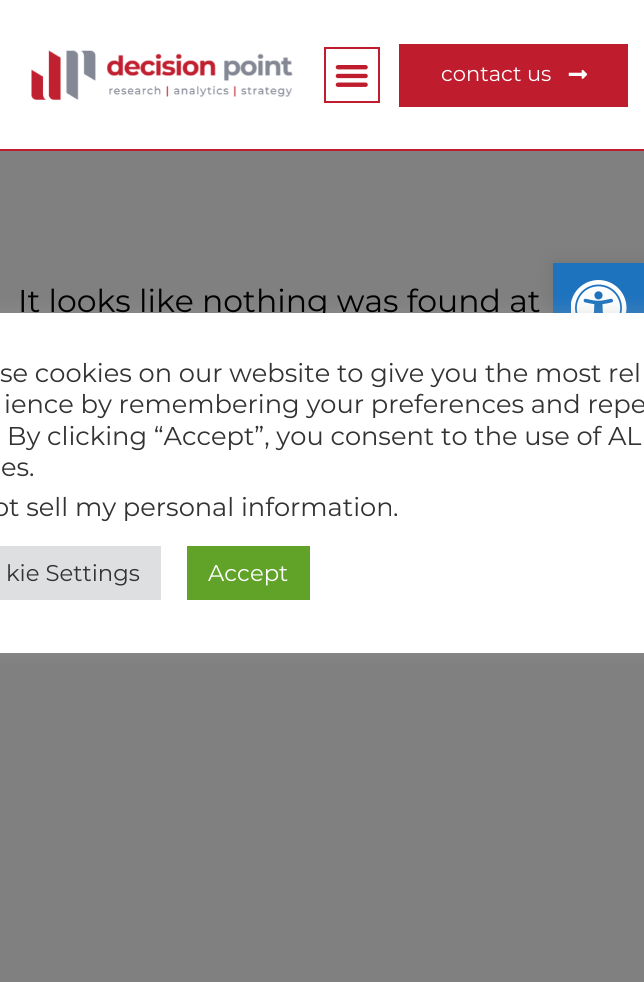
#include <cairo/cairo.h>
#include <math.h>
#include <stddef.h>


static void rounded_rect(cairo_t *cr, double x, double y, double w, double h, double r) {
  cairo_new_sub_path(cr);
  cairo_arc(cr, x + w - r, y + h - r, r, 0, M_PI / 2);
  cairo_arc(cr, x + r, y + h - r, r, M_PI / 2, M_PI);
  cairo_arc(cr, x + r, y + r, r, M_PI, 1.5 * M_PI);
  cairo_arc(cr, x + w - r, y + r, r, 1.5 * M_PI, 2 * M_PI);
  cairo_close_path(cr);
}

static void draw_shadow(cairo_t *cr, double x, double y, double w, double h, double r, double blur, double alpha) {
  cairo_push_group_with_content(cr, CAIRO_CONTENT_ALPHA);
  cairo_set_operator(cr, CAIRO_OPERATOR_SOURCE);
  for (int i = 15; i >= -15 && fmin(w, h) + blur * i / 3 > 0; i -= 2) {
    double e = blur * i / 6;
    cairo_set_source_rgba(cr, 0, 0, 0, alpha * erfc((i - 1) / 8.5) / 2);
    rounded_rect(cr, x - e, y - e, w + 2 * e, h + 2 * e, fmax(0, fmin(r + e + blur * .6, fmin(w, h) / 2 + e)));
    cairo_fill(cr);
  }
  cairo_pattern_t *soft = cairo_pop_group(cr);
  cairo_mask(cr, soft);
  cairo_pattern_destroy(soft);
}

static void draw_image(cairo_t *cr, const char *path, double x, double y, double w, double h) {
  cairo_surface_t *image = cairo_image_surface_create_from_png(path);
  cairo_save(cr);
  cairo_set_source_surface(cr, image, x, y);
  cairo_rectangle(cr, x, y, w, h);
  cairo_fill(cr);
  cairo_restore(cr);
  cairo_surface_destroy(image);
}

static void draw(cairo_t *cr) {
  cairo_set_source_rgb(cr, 128 / 255.0, 128 / 255.0, 128 / 255.0);
  cairo_paint(cr);
  cairo_set_source_rgb(cr, 1, 1, 1);
  cairo_rectangle(cr, 0, 0, 644, 149);
  cairo_fill(cr);
  cairo_set_source_rgb(cr, 191 / 255.0, 29 / 255.0, 45 / 255.0);
  cairo_rectangle(cr, 0, 149, 644, 2);
  cairo_fill(cr);
  draw_image(cr, "images/1.png", 31, 50, 262, 50);
  cairo_rectangle(cr, 325, 48, 54, 54);
  cairo_stroke(cr);
  draw_image(cr, "images/2.png", 335, 65, 33, 22);
  cairo_rectangle(cr, 399, 44, 229, 63);
  cairo_fill(cr);
  draw_image(cr, "images/3.png", 568, 69, 20, 10);
  cairo_set_source_rgb(cr, 0, 0, 0);
  draw_shadow(cr, 553, 263, 91, 91, 0, 9, 0.1);
  cairo_set_source_rgb(cr, 30 / 255.0, 115 / 255.0, 190 / 255.0);
  cairo_rectangle(cr, 553, 263, 91, 50);
  cairo_fill(cr);
  draw_image(cr, "images/4.png", 571, 280, 56, 33);
  cairo_set_source_rgb(cr, 172 / 255.0, 171 / 255.0, 171 / 255.0);
  draw_shadow(cr, -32, 312, 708, 339, 5, 9, 0.3);
  cairo_select_font_face(cr, "Montserrat", CAIRO_FONT_SLANT_NORMAL, CAIRO_FONT_WEIGHT_NORMAL);
  cairo_set_font_size(cr, 21);
  cairo_set_source_rgb(cr, 1, 1, 1);
  cairo_move_to(cr, 441, 81);
  cairo_show_text(cr, "contact us");
  cairo_set_font_size(cr, 31.5);
  cairo_set_source_rgb(cr, 0, 0, 0);
  cairo_move_to(cr, 18, 312);
  cairo_show_text(cr, "It looks like nothing was found at");
  cairo_set_source_rgb(cr, 1, 1, 1);
  cairo_rectangle(cr, 0, 313, 644, 340);
  cairo_fill(cr);
  cairo_set_font_size(cr, 25.7);
  cairo_set_source_rgb(cr, 51 / 255.0, 51 / 255.0, 51 / 255.0);
  cairo_move_to(cr, 0, 382);
  cairo_show_text(cr, "se cookies on our website to give you the most rel");
  cairo_move_to(cr, 4, 413);
  cairo_show_text(cr, "ience by remembering your preferences and repe");
  cairo_move_to(cr, 7, 445);
  cairo_show_text(cr, "By clicking “Accept”, you consent to the use of AL");
  cairo_move_to(cr, 1, 476);
  cairo_show_text(cr, "es.");
  cairo_move_to(cr, -7, 516);
  cairo_show_text(cr, "ot sell my personal information");
  cairo_move_to(cr, 393, 516);
  cairo_show_text(cr, ".");
  cairo_set_source_rgb(cr, 222 / 255.0, 223 / 255.0, 224 / 255.0);
  cairo_rectangle(cr, 0, 546, 161, 54);
  cairo_fill(cr);
  cairo_set_font_size(cr, 22.75);
  cairo_set_source_rgb(cr, 51 / 255.0, 51 / 255.0, 51 / 255.0);
  cairo_move_to(cr, 6, 581);
  cairo_show_text(cr, "kie Settings");
  cairo_set_source_rgb(cr, 97 / 255.0, 162 / 255.0, 41 / 255.0);
  cairo_rectangle(cr, 187, 546, 123, 54);
  cairo_fill(cr);
  cairo_set_source_rgb(cr, 1, 1, 1);
  cairo_move_to(cr, 208, 581);
  cairo_show_text(cr, "Accept");
}

int main(void) {
  cairo_surface_t *surface = cairo_image_surface_create(CAIRO_FORMAT_RGB24, 644, 982);
  cairo_t *cr = cairo_create(surface);
  cairo_font_options_t *options = cairo_font_options_create();
  cairo_font_options_set_hint_metrics(options, CAIRO_HINT_METRICS_OFF);
  cairo_font_options_set_hint_style(options, CAIRO_HINT_STYLE_NONE);
  cairo_set_font_options(cr, options);
  cairo_set_miter_limit(cr, 4);
  draw(cr);
  cairo_surface_write_to_png(surface, "out.png");
  cairo_font_options_destroy(options);
  cairo_destroy(cr);
  cairo_surface_destroy(surface);
  return 0;
}
